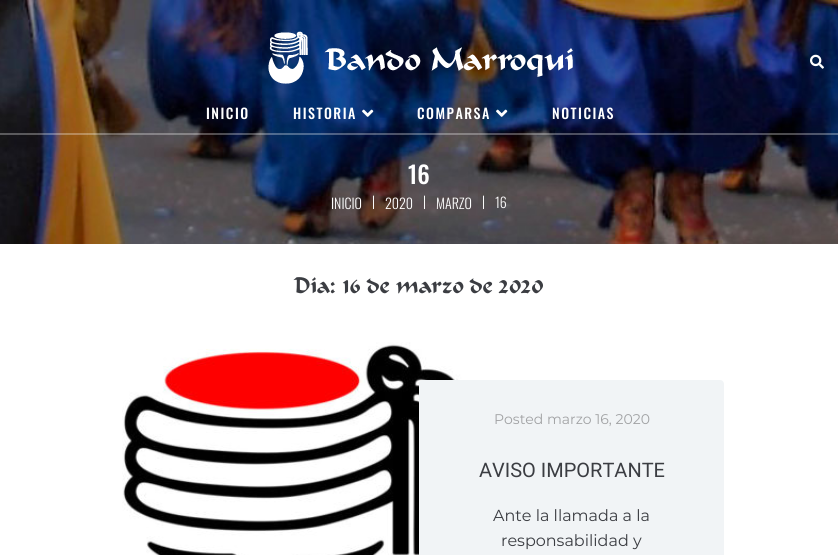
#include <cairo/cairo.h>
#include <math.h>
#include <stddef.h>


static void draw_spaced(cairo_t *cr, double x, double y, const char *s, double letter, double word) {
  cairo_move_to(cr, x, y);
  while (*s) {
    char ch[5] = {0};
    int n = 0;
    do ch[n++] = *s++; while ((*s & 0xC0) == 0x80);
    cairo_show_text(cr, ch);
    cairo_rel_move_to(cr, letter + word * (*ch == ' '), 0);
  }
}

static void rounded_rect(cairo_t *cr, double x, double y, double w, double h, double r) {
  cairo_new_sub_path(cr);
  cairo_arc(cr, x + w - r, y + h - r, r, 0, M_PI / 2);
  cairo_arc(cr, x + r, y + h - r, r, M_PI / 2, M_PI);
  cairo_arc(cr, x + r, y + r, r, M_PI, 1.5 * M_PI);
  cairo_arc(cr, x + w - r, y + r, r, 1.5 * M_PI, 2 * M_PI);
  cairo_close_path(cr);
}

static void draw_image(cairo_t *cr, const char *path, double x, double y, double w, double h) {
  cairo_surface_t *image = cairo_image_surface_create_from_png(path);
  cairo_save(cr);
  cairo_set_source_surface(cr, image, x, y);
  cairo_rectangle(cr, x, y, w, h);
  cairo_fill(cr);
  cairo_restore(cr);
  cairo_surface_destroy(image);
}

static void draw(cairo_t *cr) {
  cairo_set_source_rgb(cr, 1, 1, 1);
  cairo_paint(cr);
  draw_image(cr, "images/1.png", 0, 0, 838, 244);
  cairo_set_source_rgba(cr, 1, 1, 1, 0.3);
  cairo_rectangle(cr, 0, 133, 838, 1);
  cairo_fill(cr);
  draw_image(cr, "images/2.png", 268, 31, 305, 53);
  draw_image(cr, "images/3.png", 810, 54, 14, 15);
  draw_image(cr, "images/4.png", 362, 109, 12, 8);
  draw_image(cr, "images/5.png", 496, 109, 12, 8);
  cairo_rectangle(cr, 0, 134, 838, 1);
  cairo_fill(cr);
  draw_image(cr, "images/6.png", 122, 342, 340, 213);
  cairo_set_source_rgb(cr, 241 / 255.0, 244 / 255.0, 246 / 255.0);
  rounded_rect(cr, 419, 380, 305, 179, 4);
  cairo_fill(cr);
  cairo_select_font_face(cr, "Oswald Medium", CAIRO_FONT_SLANT_NORMAL, CAIRO_FONT_WEIGHT_NORMAL);
  cairo_set_font_size(cr, 14);
  cairo_set_source_rgb(cr, 1, 1, 1);
  draw_spaced(cr, 206, 119, "INICIO", 1.5, 0);
  draw_spaced(cr, 293, 119, "HISTORIA", 1.5, 0);
  draw_spaced(cr, 417, 119, "COMPARSA", 1.5, 0);
  draw_spaced(cr, 552, 119, "NOTICIAS", 1.5, 0);
  cairo_set_font_size(cr, 24);
  cairo_move_to(cr, 408, 184);
  cairo_show_text(cr, "16");
  cairo_select_font_face(cr, "Oswald Light", CAIRO_FONT_SLANT_NORMAL, CAIRO_FONT_WEIGHT_NORMAL);
  cairo_set_font_size(cr, 14);
  cairo_move_to(cr, 331, 209);
  cairo_show_text(cr, "INICIO");
  cairo_move_to(cr, 372, 207);
  cairo_show_text(cr, "|");
  cairo_move_to(cr, 385, 209);
  cairo_show_text(cr, "2020");
  cairo_move_to(cr, 423, 207);
  cairo_show_text(cr, "|");
  cairo_move_to(cr, 436, 209);
  cairo_show_text(cr, "MARZO");
  cairo_move_to(cr, 482, 207);
  cairo_show_text(cr, "|");
  cairo_move_to(cr, 495, 208);
  cairo_show_text(cr, "16");
  cairo_select_font_face(cr, "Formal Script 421", CAIRO_FONT_SLANT_NORMAL, CAIRO_FONT_WEIGHT_NORMAL);
  cairo_set_font_size(cr, 22);
  cairo_set_source_rgb(cr, 59 / 255.0, 61 / 255.0, 66 / 255.0);
  cairo_move_to(cr, 294, 293);
  cairo_show_text(cr, "Día: 16 de marzo de 2020");
  cairo_select_font_face(cr, "Montserrat", CAIRO_FONT_SLANT_NORMAL, CAIRO_FONT_WEIGHT_NORMAL);
  cairo_set_font_size(cr, 14);
  cairo_set_source_rgb(cr, 161 / 255.0, 162 / 255.0, 164 / 255.0);
  cairo_move_to(cr, 494, 424);
  cairo_show_text(cr, "Posted marzo 16, 2020");
  cairo_select_font_face(cr, "Roboto", CAIRO_FONT_SLANT_NORMAL, CAIRO_FONT_WEIGHT_NORMAL);
  cairo_set_font_size(cr, 20);
  cairo_set_source_rgb(cr, 59 / 255.0, 61 / 255.0, 66 / 255.0);
  cairo_move_to(cr, 479, 477);
  cairo_show_text(cr, "AVISO IMPORTANTE");
  cairo_select_font_face(cr, "Montserrat", CAIRO_FONT_SLANT_NORMAL, CAIRO_FONT_WEIGHT_NORMAL);
  cairo_set_font_size(cr, 16);
  cairo_move_to(cr, 493, 521);
  cairo_show_text(cr, "Ante la llamada a la");
  cairo_move_to(cr, 501, 546);
  cairo_show_text(cr, "responsabilidad y");
}

int main(void) {
  cairo_surface_t *surface = cairo_image_surface_create(CAIRO_FORMAT_RGB24, 838, 555);
  cairo_t *cr = cairo_create(surface);
  cairo_font_options_t *options = cairo_font_options_create();
  cairo_font_options_set_hint_metrics(options, CAIRO_HINT_METRICS_OFF);
  cairo_font_options_set_hint_style(options, CAIRO_HINT_STYLE_NONE);
  cairo_set_font_options(cr, options);
  cairo_set_miter_limit(cr, 4);
  draw(cr);
  cairo_surface_write_to_png(surface, "out.png");
  cairo_font_options_destroy(options);
  cairo_destroy(cr);
  cairo_surface_destroy(surface);
  return 0;
}
